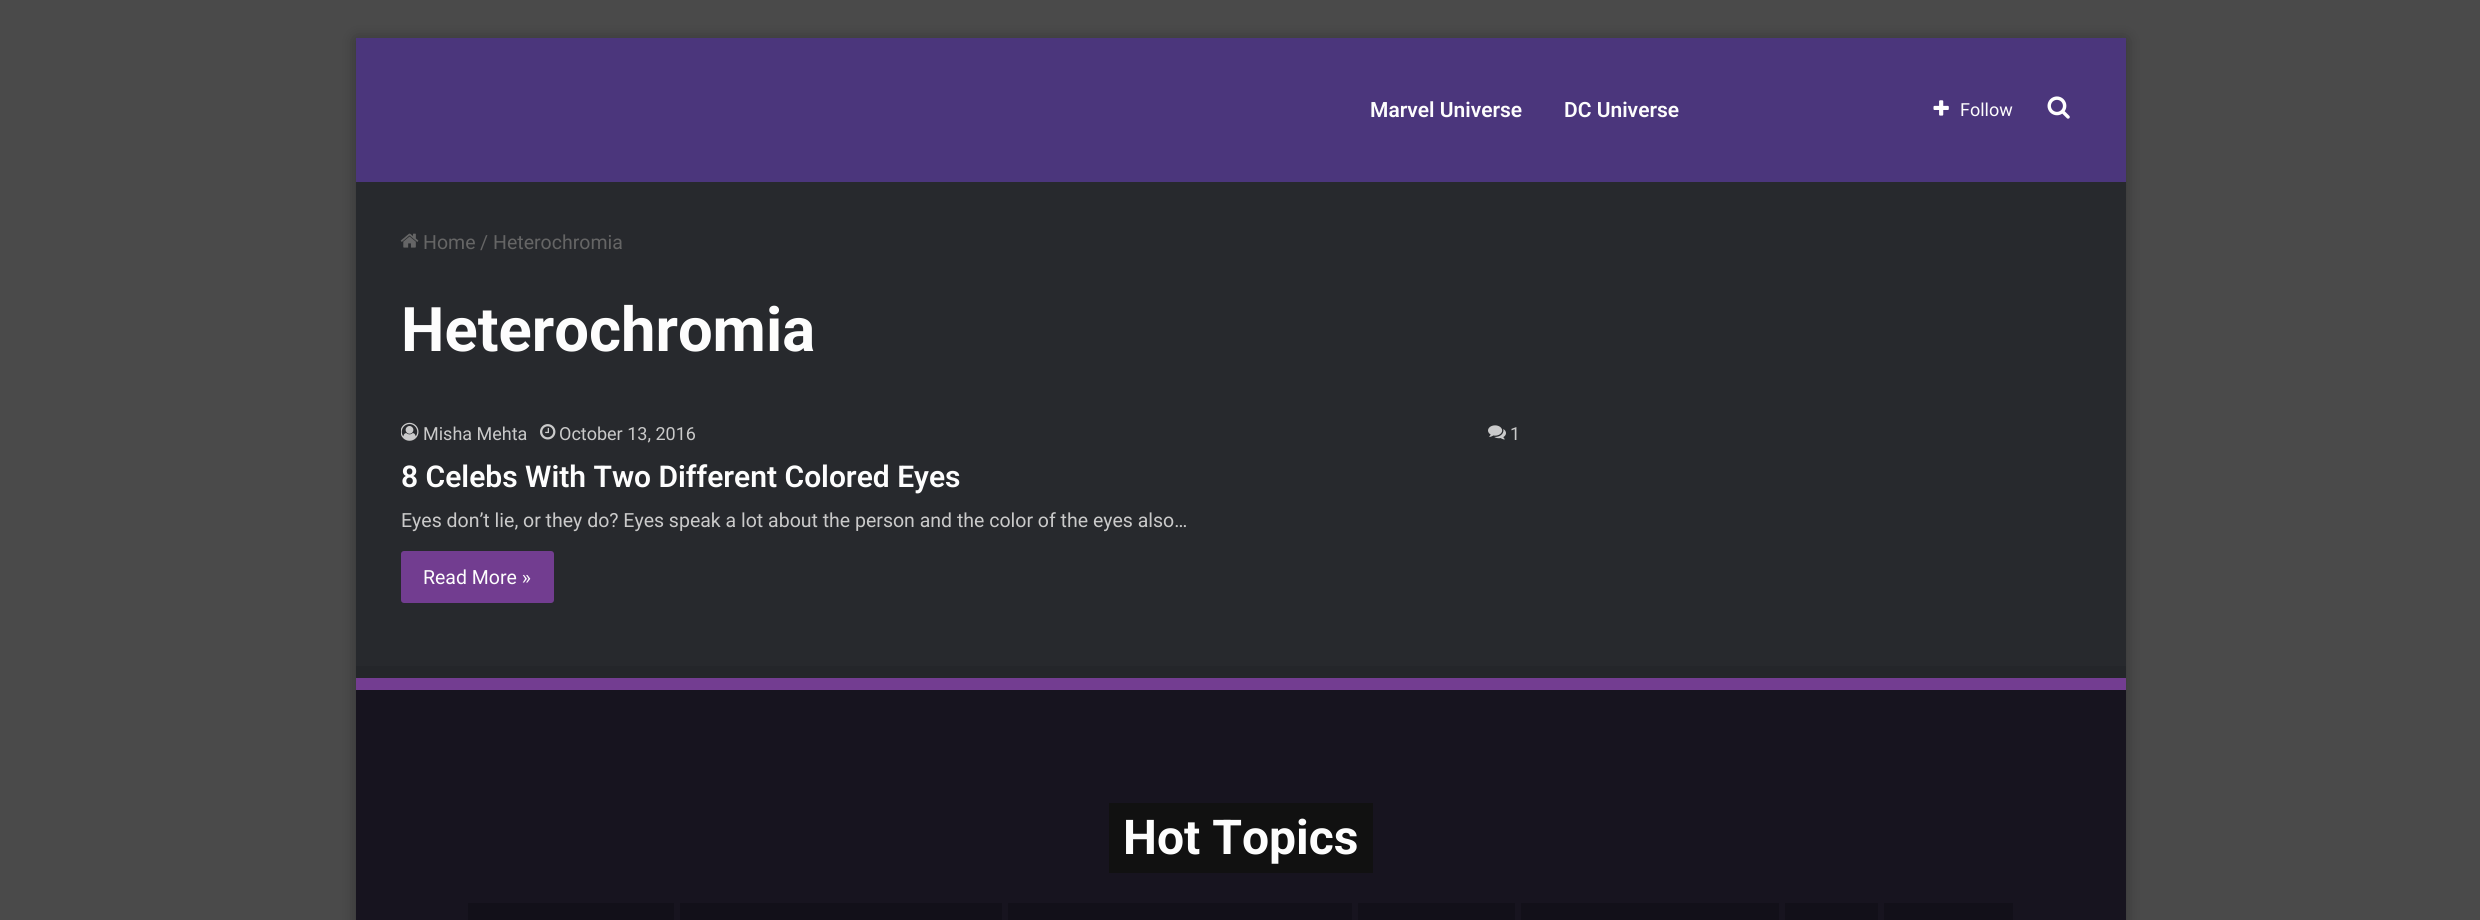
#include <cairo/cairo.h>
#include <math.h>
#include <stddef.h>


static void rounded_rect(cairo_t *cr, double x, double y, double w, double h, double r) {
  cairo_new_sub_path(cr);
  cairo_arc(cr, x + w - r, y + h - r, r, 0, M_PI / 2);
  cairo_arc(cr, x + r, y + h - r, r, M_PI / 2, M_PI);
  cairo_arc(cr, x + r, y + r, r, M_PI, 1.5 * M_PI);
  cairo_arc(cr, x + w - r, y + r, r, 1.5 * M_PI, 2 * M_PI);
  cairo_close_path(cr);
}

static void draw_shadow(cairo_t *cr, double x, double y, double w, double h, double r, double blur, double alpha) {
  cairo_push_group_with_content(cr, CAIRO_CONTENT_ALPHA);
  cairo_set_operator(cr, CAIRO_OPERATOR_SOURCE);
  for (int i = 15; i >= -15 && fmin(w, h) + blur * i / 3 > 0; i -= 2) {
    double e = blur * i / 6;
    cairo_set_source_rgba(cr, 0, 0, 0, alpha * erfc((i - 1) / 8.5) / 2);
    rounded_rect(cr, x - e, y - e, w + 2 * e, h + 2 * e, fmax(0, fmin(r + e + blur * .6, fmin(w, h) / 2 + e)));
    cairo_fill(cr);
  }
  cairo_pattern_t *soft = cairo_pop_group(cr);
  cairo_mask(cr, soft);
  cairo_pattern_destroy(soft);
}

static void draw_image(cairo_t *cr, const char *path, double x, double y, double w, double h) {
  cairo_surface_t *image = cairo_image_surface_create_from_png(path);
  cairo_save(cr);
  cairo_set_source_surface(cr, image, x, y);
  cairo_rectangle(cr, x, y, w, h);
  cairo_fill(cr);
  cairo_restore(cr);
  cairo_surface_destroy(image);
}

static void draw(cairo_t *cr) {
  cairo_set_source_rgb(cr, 74 / 255.0, 74 / 255.0, 74 / 255.0);
  cairo_paint(cr);
  cairo_set_source_rgb(cr, 0, 0, 0);
  draw_shadow(cr, 356, 39, 1770, 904, 0, 7.5, 0.3);
  cairo_set_source_rgb(cr, 39 / 255.0, 41 / 255.0, 45 / 255.0);
  cairo_rectangle(cr, 356, 182, 1770, 484);
  cairo_fill(cr);
  cairo_set_source_rgb(cr, 75 / 255.0, 54 / 255.0, 124 / 255.0);
  cairo_rectangle(cr, 356, 38, 1770, 144);
  cairo_fill(cr);
  draw_image(cr, "images/1.png", 1933, 100, 16, 16);
  draw_image(cr, "images/2.png", 2047, 96, 23, 23);
  draw_image(cr, "images/3.png", 400, 233, 19, 15);
  draw_image(cr, "images/4.png", 401, 422, 18, 19);
  draw_image(cr, "images/5.png", 540, 424, 16, 16);
  draw_image(cr, "images/6.png", 1488, 425, 18, 15);
  cairo_set_source_rgb(cr, 114 / 255.0, 61 / 255.0, 144 / 255.0);
  rounded_rect(cr, 401, 551, 153, 52, 3);
  cairo_fill(cr);
  cairo_set_source_rgb(cr, 23 / 255.0, 20 / 255.0, 31 / 255.0);
  cairo_rectangle(cr, 356, 690, 1770, 230);
  cairo_fill(cr);
  cairo_set_source_rgb(cr, 36 / 255.0, 38 / 255.0, 42 / 255.0);
  cairo_new_path(cr);
  cairo_move_to(cr, 356, 666);
  cairo_line_to(cr, 356, 678);
  cairo_line_to(cr, 2126, 678);
  cairo_line_to(cr, 2126, 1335);
  cairo_line_to(cr, 2126, 666);
  cairo_close_path(cr);
  cairo_fill(cr);
  cairo_set_source_rgb(cr, 115 / 255.0, 61 / 255.0, 145 / 255.0);
  cairo_rectangle(cr, 356, 678, 1770, 12);
  cairo_fill(cr);
  cairo_set_source_rgb(cr, 17 / 255.0, 17 / 255.0, 17 / 255.0);
  cairo_rectangle(cr, 1109, 803, 264, 70);
  cairo_fill(cr);
  cairo_set_source_rgb(cr, 18 / 255.0, 16 / 255.0, 25 / 255.0);
  cairo_rectangle(cr, 468, 903, 206, 17);
  cairo_fill(cr);
  cairo_rectangle(cr, 680, 903, 322, 17);
  cairo_fill(cr);
  cairo_rectangle(cr, 1008, 903, 344, 17);
  cairo_fill(cr);
  cairo_rectangle(cr, 1358, 903, 157, 17);
  cairo_fill(cr);
  cairo_rectangle(cr, 1521, 903, 258, 17);
  cairo_fill(cr);
  cairo_rectangle(cr, 1785, 903, 93, 17);
  cairo_fill(cr);
  cairo_rectangle(cr, 1884, 903, 129, 17);
  cairo_fill(cr);
  cairo_select_font_face(cr, "Roboto SemiBold", CAIRO_FONT_SLANT_NORMAL, CAIRO_FONT_WEIGHT_NORMAL);
  cairo_set_font_size(cr, 21);
  cairo_set_source_rgb(cr, 253 / 255.0, 253 / 255.0, 253 / 255.0);
  cairo_move_to(cr, 1370, 117);
  cairo_show_text(cr, "Marvel Universe");
  cairo_move_to(cr, 1564, 117);
  cairo_show_text(cr, "DC Universe");
  cairo_select_font_face(cr, "Roboto", CAIRO_FONT_SLANT_NORMAL, CAIRO_FONT_WEIGHT_NORMAL);
  cairo_set_font_size(cr, 18);
  cairo_move_to(cr, 1960, 116);
  cairo_show_text(cr, "Follow");
  cairo_set_font_size(cr, 19.5);
  cairo_set_source_rgb(cr, 101 / 255.0, 101 / 255.0, 101 / 255.0);
  cairo_move_to(cr, 423, 249);
  cairo_show_text(cr, "Home");
  cairo_move_to(cr, 480, 249);
  cairo_show_text(cr, "/");
  cairo_move_to(cr, 493, 249);
  cairo_show_text(cr, "Heterochromia");
  cairo_select_font_face(cr, "Roboto", CAIRO_FONT_SLANT_NORMAL, CAIRO_FONT_WEIGHT_BOLD);
  cairo_set_font_size(cr, 61.5);
  cairo_set_source_rgb(cr, 253 / 255.0, 253 / 255.0, 253 / 255.0);
  cairo_move_to(cr, 401, 351);
  cairo_show_text(cr, "Heterochromia");
  cairo_select_font_face(cr, "Roboto", CAIRO_FONT_SLANT_NORMAL, CAIRO_FONT_WEIGHT_NORMAL);
  cairo_set_font_size(cr, 18);
  cairo_set_source_rgb(cr, 202 / 255.0, 202 / 255.0, 202 / 255.0);
  cairo_move_to(cr, 423, 440);
  cairo_show_text(cr, "Misha Mehta");
  cairo_move_to(cr, 559, 440);
  cairo_show_text(cr, "October 13, 2016");
  cairo_move_to(cr, 1510, 440);
  cairo_show_text(cr, "1");
  cairo_select_font_face(cr, "Roboto SemiBold", CAIRO_FONT_SLANT_NORMAL, CAIRO_FONT_WEIGHT_NORMAL);
  cairo_set_font_size(cr, 30);
  cairo_set_source_rgb(cr, 253 / 255.0, 253 / 255.0, 253 / 255.0);
  cairo_move_to(cr, 401, 487);
  cairo_show_text(cr, "8 Celebs With Two Different Colored Eyes");
  cairo_select_font_face(cr, "Roboto", CAIRO_FONT_SLANT_NORMAL, CAIRO_FONT_WEIGHT_NORMAL);
  cairo_set_font_size(cr, 19.5);
  cairo_set_source_rgb(cr, 202 / 255.0, 202 / 255.0, 202 / 255.0);
  cairo_move_to(cr, 401, 527);
  cairo_show_text(cr, "Eyes don’t lie, or they do? Eyes speak a lot about the person and the color of the eyes also…");
  cairo_set_source_rgb(cr, 253 / 255.0, 253 / 255.0, 253 / 255.0);
  cairo_move_to(cr, 423, 584);
  cairo_show_text(cr, "Read More »");
  cairo_select_font_face(cr, "Roboto", CAIRO_FONT_SLANT_NORMAL, CAIRO_FONT_WEIGHT_BOLD);
  cairo_set_font_size(cr, 48);
  cairo_move_to(cr, 1123, 854);
  cairo_show_text(cr, "Hot Topics");
}

int main(void) {
  cairo_surface_t *surface = cairo_image_surface_create(CAIRO_FORMAT_RGB24, 2480, 920);
  cairo_t *cr = cairo_create(surface);
  cairo_font_options_t *options = cairo_font_options_create();
  cairo_font_options_set_hint_metrics(options, CAIRO_HINT_METRICS_OFF);
  cairo_font_options_set_hint_style(options, CAIRO_HINT_STYLE_NONE);
  cairo_set_font_options(cr, options);
  cairo_set_miter_limit(cr, 4);
  draw(cr);
  cairo_surface_write_to_png(surface, "out.png");
  cairo_font_options_destroy(options);
  cairo_destroy(cr);
  cairo_surface_destroy(surface);
  return 0;
}
